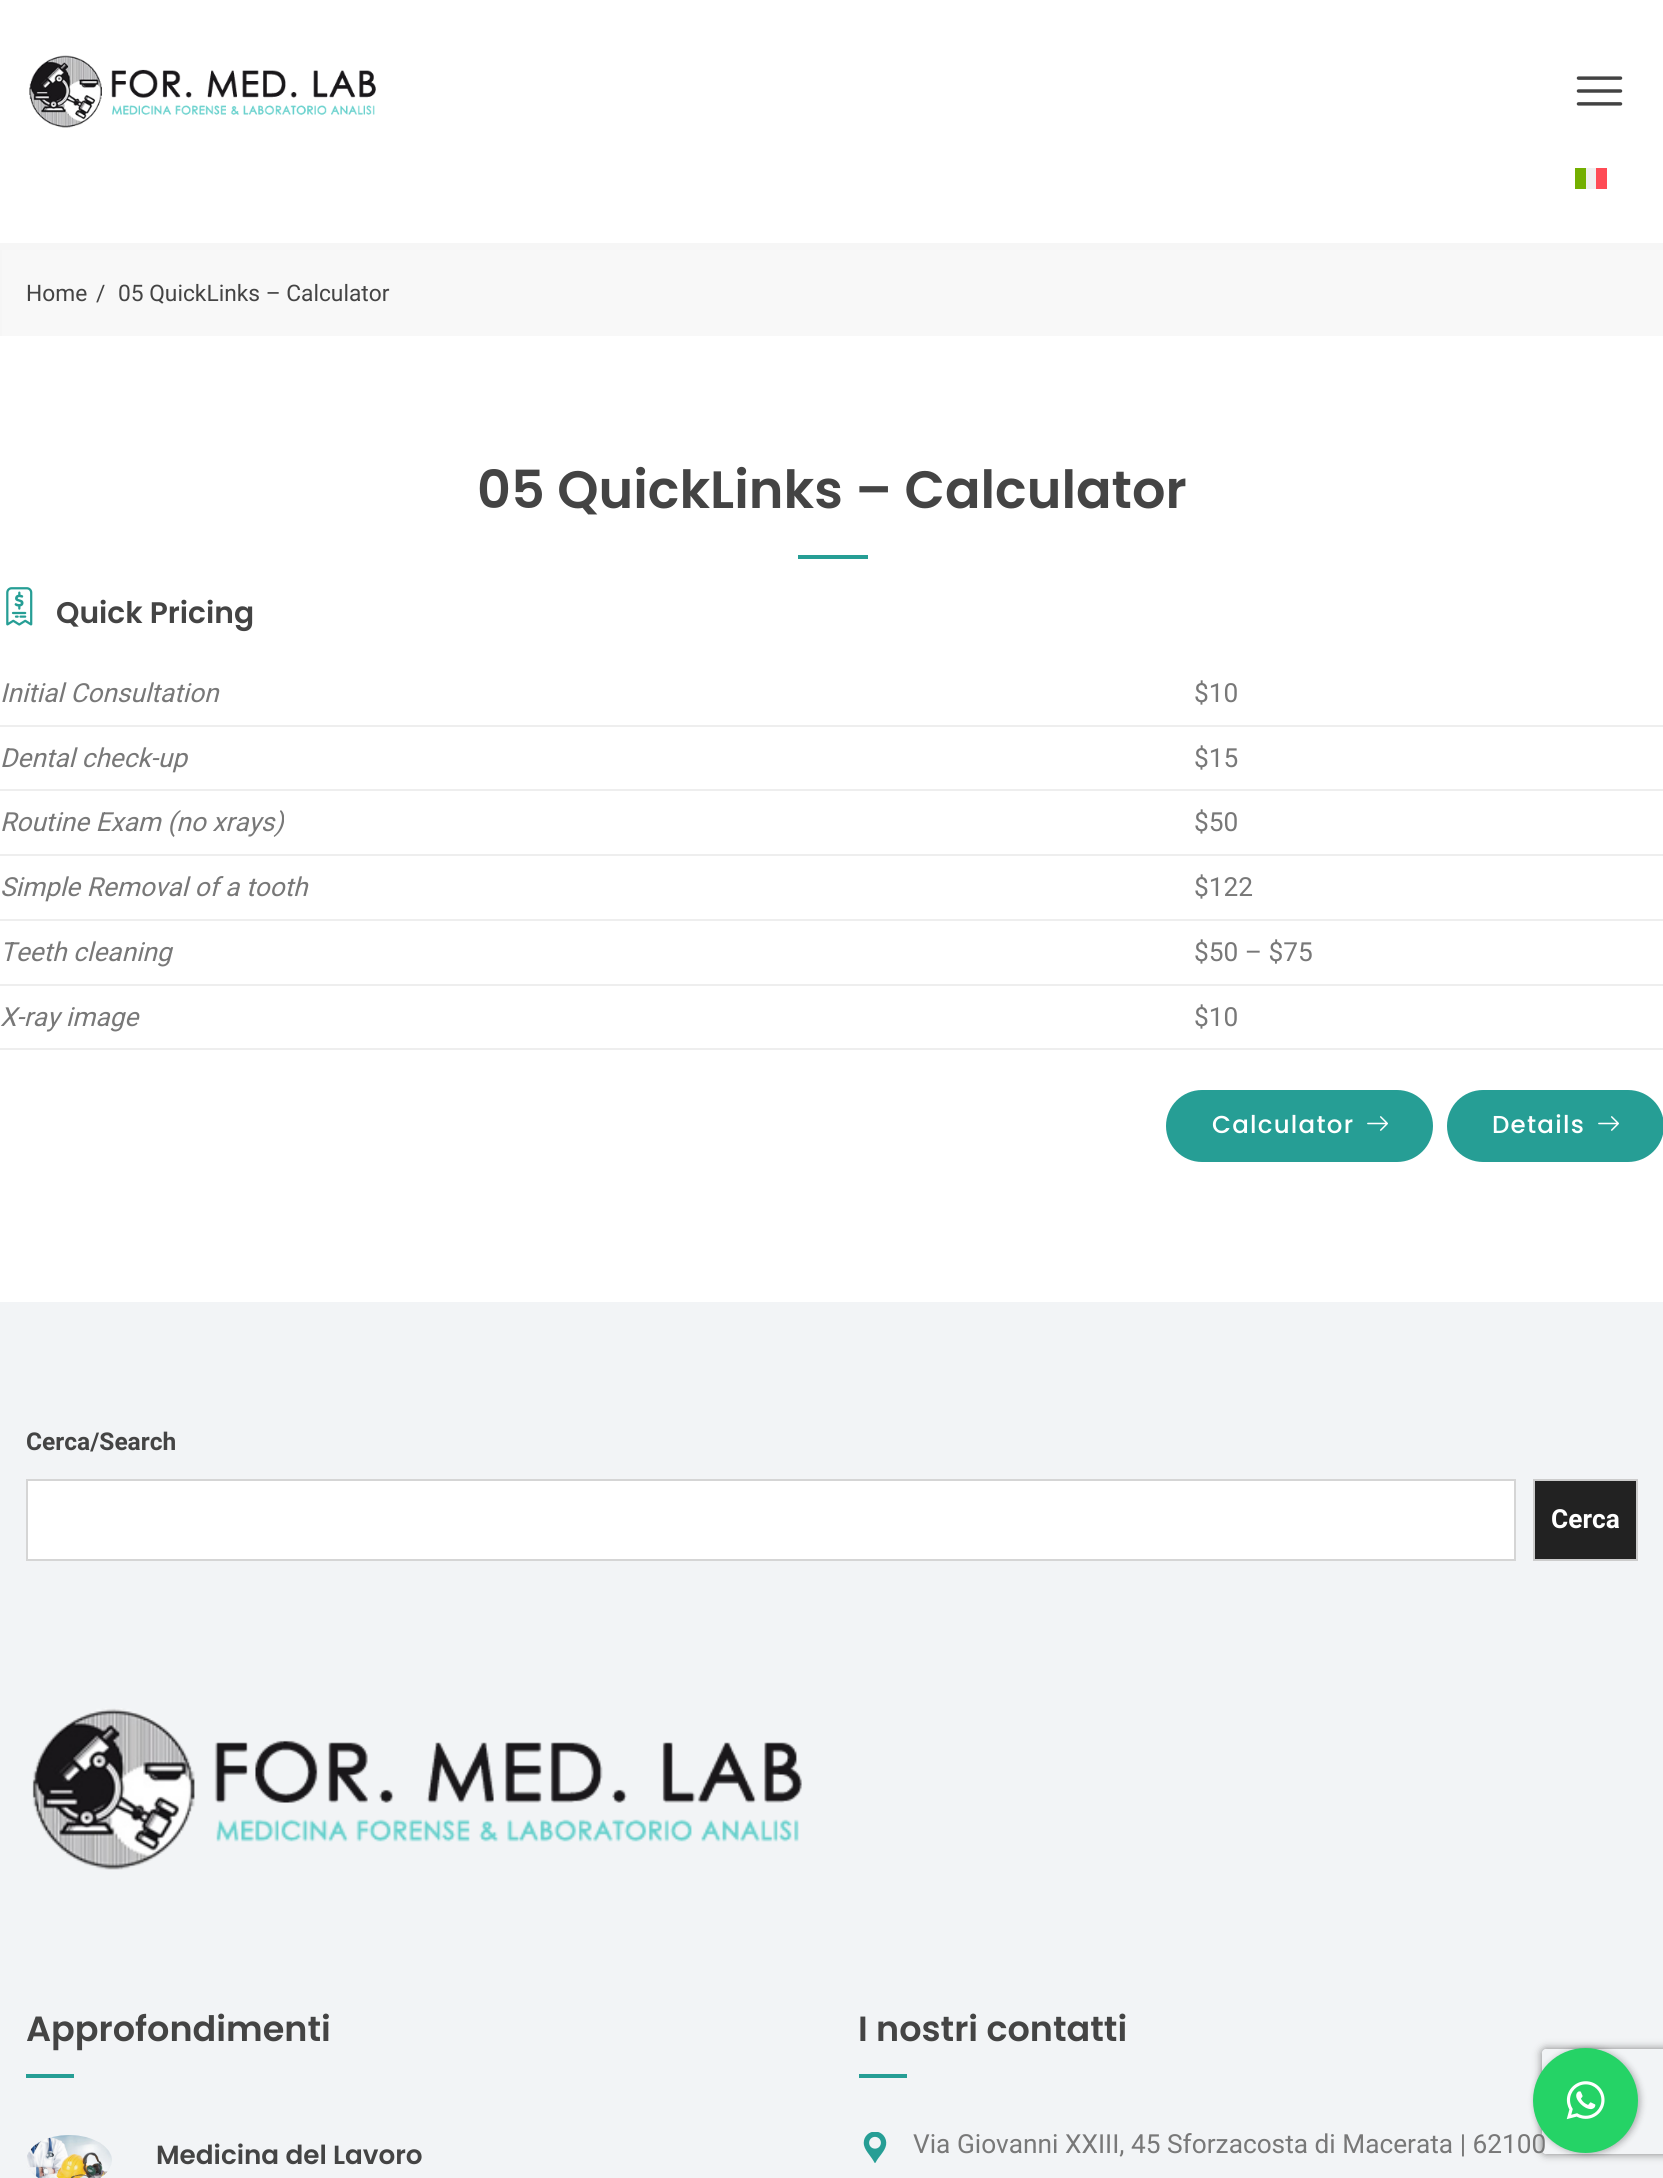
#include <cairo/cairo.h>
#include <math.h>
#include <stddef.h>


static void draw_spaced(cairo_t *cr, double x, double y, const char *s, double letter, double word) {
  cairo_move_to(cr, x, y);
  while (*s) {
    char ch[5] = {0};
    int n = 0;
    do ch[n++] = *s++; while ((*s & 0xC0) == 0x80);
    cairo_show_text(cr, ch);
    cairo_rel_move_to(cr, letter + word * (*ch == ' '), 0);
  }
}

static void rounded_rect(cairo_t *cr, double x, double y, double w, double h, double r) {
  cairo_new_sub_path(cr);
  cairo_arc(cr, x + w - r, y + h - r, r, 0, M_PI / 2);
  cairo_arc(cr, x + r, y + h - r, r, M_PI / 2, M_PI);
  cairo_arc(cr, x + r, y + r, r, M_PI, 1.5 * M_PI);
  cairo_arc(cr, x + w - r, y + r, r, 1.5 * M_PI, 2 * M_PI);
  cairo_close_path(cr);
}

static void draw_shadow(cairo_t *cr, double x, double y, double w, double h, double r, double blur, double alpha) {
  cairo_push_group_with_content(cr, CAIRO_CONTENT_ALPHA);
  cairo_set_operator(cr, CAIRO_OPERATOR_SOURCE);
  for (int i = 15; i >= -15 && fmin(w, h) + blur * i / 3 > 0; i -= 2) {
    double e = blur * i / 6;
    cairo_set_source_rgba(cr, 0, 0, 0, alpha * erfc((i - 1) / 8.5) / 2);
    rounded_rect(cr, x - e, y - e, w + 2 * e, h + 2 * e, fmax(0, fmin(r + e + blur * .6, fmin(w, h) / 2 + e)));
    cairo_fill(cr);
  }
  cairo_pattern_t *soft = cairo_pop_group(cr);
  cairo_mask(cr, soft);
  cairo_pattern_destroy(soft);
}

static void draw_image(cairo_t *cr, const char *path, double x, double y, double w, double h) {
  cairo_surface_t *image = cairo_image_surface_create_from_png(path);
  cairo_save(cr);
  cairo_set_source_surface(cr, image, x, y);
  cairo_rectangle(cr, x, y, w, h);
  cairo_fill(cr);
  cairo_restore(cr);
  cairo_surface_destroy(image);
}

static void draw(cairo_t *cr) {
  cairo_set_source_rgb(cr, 1, 1, 1);
  cairo_paint(cr);
  draw_image(cr, "images/1.png", 29, 55, 347, 73);
  draw_image(cr, "images/2.png", 1576, 76, 47, 30);
  cairo_set_source_rgb(cr, 115 / 255.0, 175 / 255.0, 0);
  cairo_rectangle(cr, 1575, 168, 11, 21);
  cairo_fill(cr);
  cairo_set_source_rgb(cr, 240 / 255.0, 240 / 255.0, 240 / 255.0);
  cairo_rectangle(cr, 1586, 168, 10, 21);
  cairo_fill(cr);
  cairo_set_source_rgb(cr, 1, 75 / 255.0, 85 / 255.0);
  cairo_rectangle(cr, 1596, 168, 11, 21);
  cairo_fill(cr);
  cairo_set_source_rgb(cr, 248 / 255.0, 248 / 255.0, 248 / 255.0);
  cairo_rectangle(cr, 2, 250, 1661, 86);
  cairo_fill(cr);
  cairo_save(cr);
  cairo_rectangle(cr, 0, 243, 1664, 93);
  cairo_clip(cr);
  cairo_set_source_rgb(cr, 246 / 255.0, 246 / 255.0, 246 / 255.0);
  cairo_set_fill_rule(cr, CAIRO_FILL_RULE_EVEN_ODD);
  cairo_new_path(cr);
  cairo_move_to(cr, -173, 70);
  cairo_line_to(cr, 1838, 70);
  cairo_line_to(cr, 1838, 509);
  cairo_line_to(cr, -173, 509);
  cairo_close_path(cr);
  cairo_move_to(cr, 2, 250);
  cairo_line_to(cr, 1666, 250);
  cairo_line_to(cr, 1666, 343);
  cairo_line_to(cr, 2, 343);
  cairo_close_path(cr);
  cairo_fill(cr);
  cairo_restore(cr);
  cairo_set_source_rgb(cr, 38 / 255.0, 158 / 255.0, 149 / 255.0);
  cairo_rectangle(cr, 798, 555, 70, 4);
  cairo_fill(cr);
  draw_image(cr, "images/3.png", 6, 587, 27, 39);
  cairo_set_source_rgb(cr, 238 / 255.0, 238 / 255.0, 238 / 255.0);
  cairo_rectangle(cr, 0, 725, 1663, 2);
  cairo_fill(cr);
  cairo_rectangle(cr, 0, 789, 1663, 2);
  cairo_fill(cr);
  cairo_rectangle(cr, 0, 854, 1663, 2);
  cairo_fill(cr);
  cairo_rectangle(cr, 0, 919, 1663, 2);
  cairo_fill(cr);
  cairo_rectangle(cr, 0, 984, 1663, 2);
  cairo_fill(cr);
  cairo_rectangle(cr, 0, 1048, 1663, 2);
  cairo_fill(cr);
  cairo_set_source_rgb(cr, 38 / 255.0, 158 / 255.0, 149 / 255.0);
  rounded_rect(cr, 1166, 1090, 267, 72, 36);
  cairo_fill(cr);
  draw_image(cr, "images/4.png", 1367, 1116, 21, 15);
  rounded_rect(cr, 1447, 1090, 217, 72, 36);
  cairo_fill(cr);
  draw_image(cr, "images/4.png", 1598, 1116, 21, 15);
  cairo_set_source_rgb(cr, 242 / 255.0, 244 / 255.0, 246 / 255.0);
  cairo_rectangle(cr, 0, 1302, 1663, 876);
  cairo_fill(cr);
  cairo_set_source_rgb(cr, 1, 1, 1);
  cairo_rectangle(cr, 27, 1480, 1488, 80);
  cairo_fill_preserve(cr);
  cairo_set_source_rgb(cr, 213 / 255.0, 213 / 255.0, 213 / 255.0);
  cairo_stroke(cr);
  cairo_set_source_rgb(cr, 34 / 255.0, 34 / 255.0, 34 / 255.0);
  cairo_rectangle(cr, 1534, 1480, 103, 80);
  cairo_fill_preserve(cr);
  cairo_set_source_rgb(cr, 204 / 255.0, 204 / 255.0, 204 / 255.0);
  cairo_stroke(cr);
  draw_image(cr, "images/5.png", 32, 1708, 770, 162);
  cairo_set_source_rgb(cr, 38 / 255.0, 158 / 255.0, 149 / 255.0);
  cairo_rectangle(cr, 26, 2074, 48, 4);
  cairo_fill(cr);
  draw_image(cr, "images/6.png", 27, 2135, 85, 43);
  cairo_rectangle(cr, 859, 2074, 48, 4);
  cairo_fill(cr);
  draw_image(cr, "images/7.png", 863, 2132, 24, 31);
  cairo_save(cr);
  cairo_set_fill_rule(cr, CAIRO_FILL_RULE_EVEN_ODD);
  cairo_new_path(cr);
  cairo_move_to(cr, 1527, 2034);
  cairo_line_to(cr, 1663, 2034);
  cairo_line_to(cr, 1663, 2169);
  cairo_line_to(cr, 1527, 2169);
  cairo_close_path(cr);
  cairo_move_to(cr, 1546, 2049);
  cairo_line_to(cr, 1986, 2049);
  cairo_curve_to(cr, 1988, 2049, 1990, 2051, 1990, 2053);
  cairo_line_to(cr, 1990, 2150);
  cairo_curve_to(cr, 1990, 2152, 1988, 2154, 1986, 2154);
  cairo_line_to(cr, 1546, 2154);
  cairo_curve_to(cr, 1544, 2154, 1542, 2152, 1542, 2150);
  cairo_line_to(cr, 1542, 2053);
  cairo_curve_to(cr, 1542, 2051, 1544, 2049, 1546, 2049);
  cairo_close_path(cr);
  cairo_clip(cr);
  cairo_set_source_rgb(cr, 128 / 255.0, 128 / 255.0, 128 / 255.0);
  draw_shadow(cr, 1542, 2049, 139, 105, 4, 4.5, 1);
  cairo_restore(cr);
  cairo_set_source_rgb(cr, 0, 0, 0);
  draw_shadow(cr, 1535, 2049, 105, 105, 52.5, 3.5, 0.3);
  cairo_select_font_face(cr, "Roboto", CAIRO_FONT_SLANT_NORMAL, CAIRO_FONT_WEIGHT_NORMAL);
  cairo_set_font_size(cr, 22.75);
  cairo_set_source_rgb(cr, 68 / 255.0, 68 / 255.0, 68 / 255.0);
  cairo_move_to(cr, 26, 301);
  cairo_show_text(cr, "Home");
  cairo_move_to(cr, 96, 301);
  cairo_show_text(cr, "/");
  cairo_move_to(cr, 118, 301);
  cairo_show_text(cr, "05 QuickLinks – Calculator");
  cairo_select_font_face(cr, "Poppins SemiBold", CAIRO_FONT_SLANT_NORMAL, CAIRO_FONT_WEIGHT_NORMAL);
  cairo_set_font_size(cr, 52.5);
  cairo_move_to(cr, 477, 508);
  cairo_show_text(cr, "05 QuickLinks – Calculator");
  cairo_set_font_size(cr, 29.75);
  cairo_move_to(cr, 56, 623);
  cairo_show_text(cr, "Quick Pricing");
  cairo_select_font_face(cr, "Roboto", CAIRO_FONT_SLANT_ITALIC, CAIRO_FONT_WEIGHT_NORMAL);
  cairo_set_font_size(cr, 26.25);
  cairo_set_source_rgb(cr, 120 / 255.0, 120 / 255.0, 120 / 255.0);
  cairo_move_to(cr, 0, 702);
  cairo_show_text(cr, "Initial Consultation");
  cairo_select_font_face(cr, "Roboto", CAIRO_FONT_SLANT_NORMAL, CAIRO_FONT_WEIGHT_NORMAL);
  cairo_move_to(cr, 1194, 702);
  cairo_show_text(cr, "$10");
  cairo_select_font_face(cr, "Roboto", CAIRO_FONT_SLANT_ITALIC, CAIRO_FONT_WEIGHT_NORMAL);
  cairo_move_to(cr, 0, 767);
  cairo_show_text(cr, "Dental check-up");
  cairo_select_font_face(cr, "Roboto", CAIRO_FONT_SLANT_NORMAL, CAIRO_FONT_WEIGHT_NORMAL);
  cairo_move_to(cr, 1194, 767);
  cairo_show_text(cr, "$15");
  cairo_select_font_face(cr, "Roboto", CAIRO_FONT_SLANT_ITALIC, CAIRO_FONT_WEIGHT_NORMAL);
  cairo_move_to(cr, 0, 831);
  cairo_show_text(cr, "Routine Exam (no xrays)");
  cairo_select_font_face(cr, "Roboto", CAIRO_FONT_SLANT_NORMAL, CAIRO_FONT_WEIGHT_NORMAL);
  cairo_move_to(cr, 1194, 831);
  cairo_show_text(cr, "$50");
  cairo_select_font_face(cr, "Roboto", CAIRO_FONT_SLANT_ITALIC, CAIRO_FONT_WEIGHT_NORMAL);
  cairo_move_to(cr, 0, 896);
  cairo_show_text(cr, "Simple Removal of a tooth");
  cairo_select_font_face(cr, "Roboto", CAIRO_FONT_SLANT_NORMAL, CAIRO_FONT_WEIGHT_NORMAL);
  cairo_move_to(cr, 1194, 896);
  cairo_show_text(cr, "$122");
  cairo_select_font_face(cr, "Roboto", CAIRO_FONT_SLANT_ITALIC, CAIRO_FONT_WEIGHT_NORMAL);
  cairo_move_to(cr, 0, 961);
  cairo_show_text(cr, "Teeth cleaning");
  cairo_select_font_face(cr, "Roboto", CAIRO_FONT_SLANT_NORMAL, CAIRO_FONT_WEIGHT_NORMAL);
  cairo_move_to(cr, 1194, 961);
  cairo_show_text(cr, "$50 – $75");
  cairo_select_font_face(cr, "Roboto", CAIRO_FONT_SLANT_ITALIC, CAIRO_FONT_WEIGHT_NORMAL);
  cairo_move_to(cr, 0, 1026);
  cairo_show_text(cr, "X-ray image");
  cairo_select_font_face(cr, "Roboto", CAIRO_FONT_SLANT_NORMAL, CAIRO_FONT_WEIGHT_NORMAL);
  cairo_move_to(cr, 1194, 1026);
  cairo_show_text(cr, "$10");
  cairo_select_font_face(cr, "Poppins Medium", CAIRO_FONT_SLANT_NORMAL, CAIRO_FONT_WEIGHT_NORMAL);
  cairo_set_font_size(cr, 24.5);
  cairo_set_source_rgb(cr, 1, 1, 1);
  draw_spaced(cr, 1212, 1133, "Calculator", 1.25, 0);
  draw_spaced(cr, 1492, 1133, "Details", 1.25, 0);
  cairo_select_font_face(cr, "Roboto", CAIRO_FONT_SLANT_NORMAL, CAIRO_FONT_WEIGHT_BOLD);
  cairo_set_source_rgb(cr, 68 / 255.0, 68 / 255.0, 68 / 255.0);
  cairo_move_to(cr, 26, 1450);
  cairo_show_text(cr, "Cerca/Search");
  cairo_set_font_size(cr, 26.25);
  cairo_set_source_rgb(cr, 1, 1, 1);
  cairo_move_to(cr, 1551, 1528);
  cairo_show_text(cr, "Cerca");
  cairo_select_font_face(cr, "Poppins SemiBold", CAIRO_FONT_SLANT_NORMAL, CAIRO_FONT_WEIGHT_NORMAL);
  cairo_set_font_size(cr, 35);
  cairo_set_source_rgb(cr, 68 / 255.0, 68 / 255.0, 68 / 255.0);
  cairo_move_to(cr, 26, 2041);
  cairo_show_text(cr, "Approfondimenti");
  cairo_set_font_size(cr, 26.25);
  cairo_move_to(cr, 156, 2164);
  cairo_show_text(cr, "Medicina del Lavoro");
  cairo_set_font_size(cr, 35);
  cairo_move_to(cr, 858, 2041);
  cairo_show_text(cr, "I nostri contatti");
  cairo_select_font_face(cr, "Roboto", CAIRO_FONT_SLANT_NORMAL, CAIRO_FONT_WEIGHT_NORMAL);
  cairo_set_font_size(cr, 26.25);
  cairo_set_source_rgb(cr, 120 / 255.0, 120 / 255.0, 120 / 255.0);
  cairo_move_to(cr, 913, 2153);
  cairo_show_text(cr, "Via Giovanni XXIII, 45 Sforzacosta di Macerata | 62100");
  cairo_set_source_rgb(cr, 37 / 255.0, 211 / 255.0, 102 / 255.0);
  cairo_new_path(cr);
  cairo_arc(cr, 1585.5, 2100.5, 52.5, 0, 2 * M_PI);
  cairo_fill(cr);
  draw_image(cr, "images/8.png", 1566, 2081, 39, 39);
}

int main(void) {
  cairo_surface_t *surface = cairo_image_surface_create(CAIRO_FORMAT_RGB24, 1663, 2178);
  cairo_t *cr = cairo_create(surface);
  cairo_font_options_t *options = cairo_font_options_create();
  cairo_font_options_set_hint_metrics(options, CAIRO_HINT_METRICS_OFF);
  cairo_font_options_set_hint_style(options, CAIRO_HINT_STYLE_NONE);
  cairo_set_font_options(cr, options);
  cairo_set_miter_limit(cr, 4);
  draw(cr);
  cairo_surface_write_to_png(surface, "out.png");
  cairo_font_options_destroy(options);
  cairo_destroy(cr);
  cairo_surface_destroy(surface);
  return 0;
}
